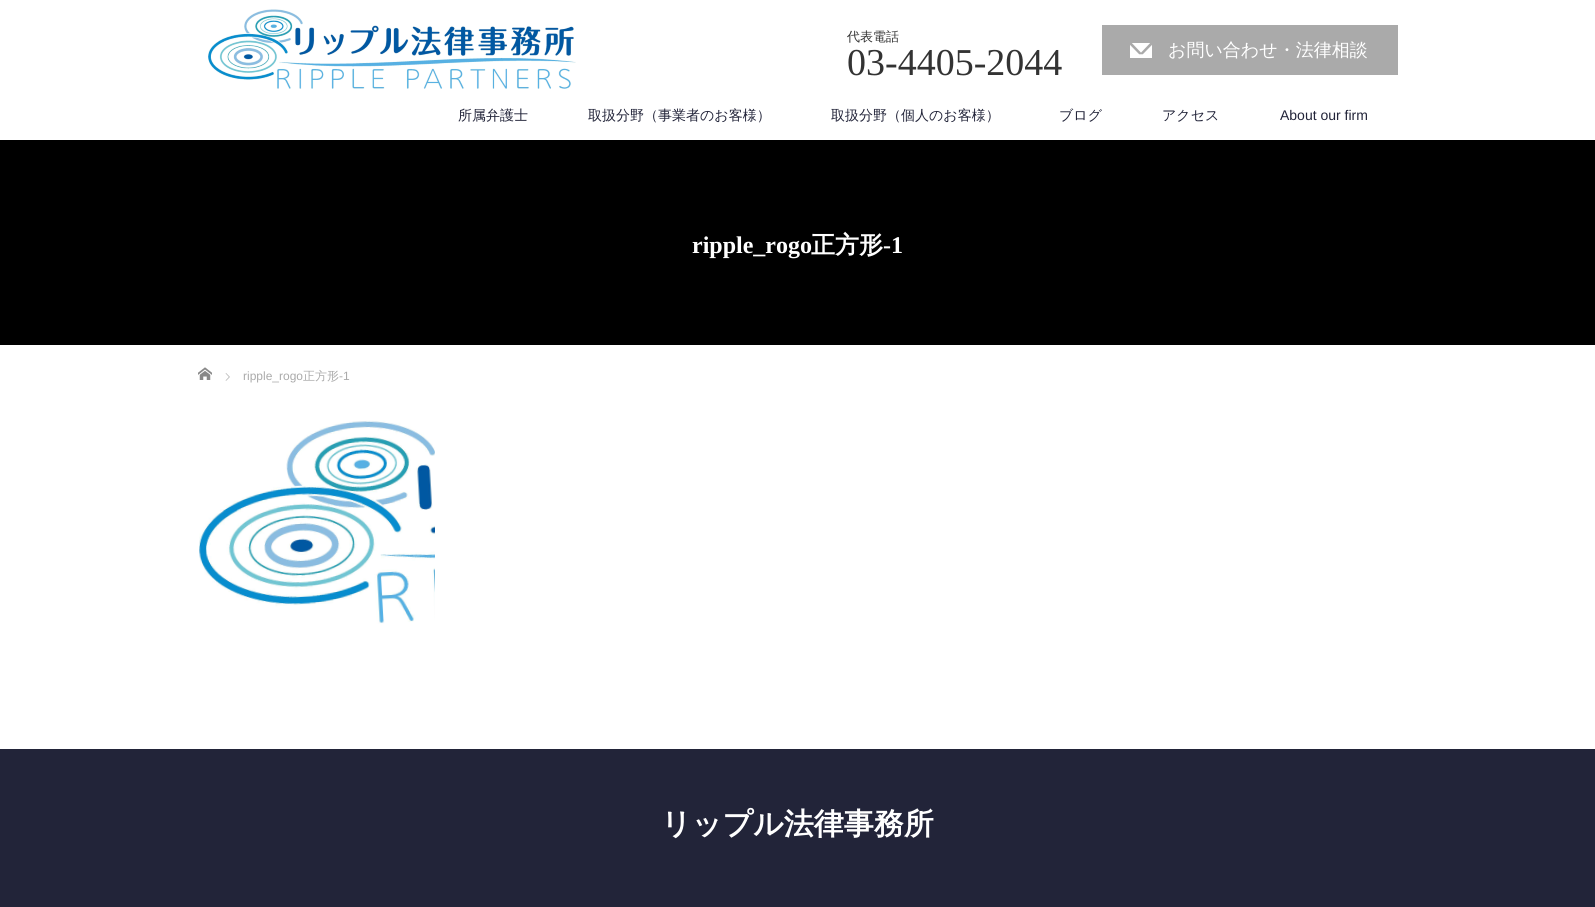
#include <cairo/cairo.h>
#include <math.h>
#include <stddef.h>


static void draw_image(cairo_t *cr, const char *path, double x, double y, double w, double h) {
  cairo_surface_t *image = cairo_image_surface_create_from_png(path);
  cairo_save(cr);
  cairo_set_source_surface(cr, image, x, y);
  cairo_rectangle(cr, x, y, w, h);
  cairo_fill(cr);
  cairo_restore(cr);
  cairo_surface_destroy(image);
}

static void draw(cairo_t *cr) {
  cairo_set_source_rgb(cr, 1, 1, 1);
  cairo_paint(cr);
  draw_image(cr, "images/1.png", 208, 9, 368, 80);
  cairo_set_source_rgb(cr, 170 / 255.0, 170 / 255.0, 170 / 255.0);
  cairo_rectangle(cr, 1102, 25, 296, 50);
  cairo_fill(cr);
  draw_image(cr, "images/2.png", 1130, 43, 22, 15);
  cairo_set_source_rgb(cr, 0, 0, 0);
  cairo_rectangle(cr, 0, 140, 1595, 205);
  cairo_fill(cr);
  draw_image(cr, "images/3.png", 198, 367, 14, 13);
  draw_image(cr, "images/4.png", 225, 373, 5, 8);
  draw_image(cr, "images/5.png", 199, 420, 236, 204);
  cairo_set_source_rgb(cr, 34 / 255.0, 36 / 255.0, 57 / 255.0);
  cairo_rectangle(cr, 0, 749, 1595, 158);
  cairo_fill(cr);
  cairo_select_font_face(cr, "WenQuanYi Zen Hei Medium", CAIRO_FONT_SLANT_NORMAL, CAIRO_FONT_WEIGHT_NORMAL);
  cairo_set_font_size(cr, 13);
  cairo_set_source_rgb(cr, 51 / 255.0, 51 / 255.0, 51 / 255.0);
  cairo_move_to(cr, 847, 41);
  cairo_show_text(cr, "代表電話");
  cairo_select_font_face(cr, "Liberation Serif", CAIRO_FONT_SLANT_NORMAL, CAIRO_FONT_WEIGHT_NORMAL);
  cairo_set_font_size(cr, 38);
  cairo_move_to(cr, 847, 75);
  cairo_show_text(cr, "03-4405-2044");
  cairo_select_font_face(cr, "WenQuanYi Zen Hei Medium", CAIRO_FONT_SLANT_NORMAL, CAIRO_FONT_WEIGHT_NORMAL);
  cairo_set_font_size(cr, 18);
  cairo_set_source_rgb(cr, 1, 1, 1);
  cairo_move_to(cr, 1168, 56);
  cairo_show_text(cr, "お問い合わせ・法律相談");
  cairo_set_font_size(cr, 14);
  cairo_set_source_rgb(cr, 34 / 255.0, 36 / 255.0, 57 / 255.0);
  cairo_move_to(cr, 458, 120);
  cairo_show_text(cr, "所属弁護士");
  cairo_move_to(cr, 588, 120);
  cairo_show_text(cr, "取扱分野（事業者のお客様）");
  cairo_move_to(cr, 831, 120);
  cairo_show_text(cr, "取扱分野（個人のお客様）");
  cairo_move_to(cr, 1059, 120);
  cairo_show_text(cr, "ブログ");
  cairo_move_to(cr, 1162, 120);
  cairo_show_text(cr, "アクセス");
  cairo_select_font_face(cr, "Liberation Sans", CAIRO_FONT_SLANT_NORMAL, CAIRO_FONT_WEIGHT_NORMAL);
  cairo_move_to(cr, 1280, 120);
  cairo_show_text(cr, "About our firm");
  cairo_select_font_face(cr, "Liberation Serif", CAIRO_FONT_SLANT_NORMAL, CAIRO_FONT_WEIGHT_BOLD);
  cairo_set_font_size(cr, 24);
  cairo_set_source_rgb(cr, 1, 1, 1);
  cairo_move_to(cr, 692, 253);
  cairo_show_text(cr, "ripple_rogo");
  cairo_select_font_face(cr, "WenQuanYi Zen Hei", CAIRO_FONT_SLANT_NORMAL, CAIRO_FONT_WEIGHT_BOLD);
  cairo_move_to(cr, 811, 253);
  cairo_show_text(cr, "正方形");
  cairo_select_font_face(cr, "Liberation Serif", CAIRO_FONT_SLANT_NORMAL, CAIRO_FONT_WEIGHT_BOLD);
  cairo_move_to(cr, 883, 253);
  cairo_show_text(cr, "-1");
  cairo_select_font_face(cr, "Liberation Sans", CAIRO_FONT_SLANT_NORMAL, CAIRO_FONT_WEIGHT_NORMAL);
  cairo_set_font_size(cr, 12);
  cairo_set_source_rgb(cr, 170 / 255.0, 170 / 255.0, 170 / 255.0);
  cairo_move_to(cr, 243, 380);
  cairo_show_text(cr, "ripple_rogo");
  cairo_select_font_face(cr, "WenQuanYi Zen Hei Medium", CAIRO_FONT_SLANT_NORMAL, CAIRO_FONT_WEIGHT_NORMAL);
  cairo_move_to(cr, 303, 380);
  cairo_show_text(cr, "正方形");
  cairo_select_font_face(cr, "Liberation Sans", CAIRO_FONT_SLANT_NORMAL, CAIRO_FONT_WEIGHT_NORMAL);
  cairo_move_to(cr, 339, 380);
  cairo_show_text(cr, "-1");
  cairo_select_font_face(cr, "WenQuanYi Zen Hei", CAIRO_FONT_SLANT_NORMAL, CAIRO_FONT_WEIGHT_BOLD);
  cairo_set_font_size(cr, 30);
  cairo_set_source_rgb(cr, 1, 1, 1);
  cairo_move_to(cr, 661, 834);
  cairo_show_text(cr, "リップル法律事務所");
}

int main(void) {
  cairo_surface_t *surface = cairo_image_surface_create(CAIRO_FORMAT_RGB24, 1595, 907);
  cairo_t *cr = cairo_create(surface);
  cairo_font_options_t *options = cairo_font_options_create();
  cairo_font_options_set_hint_metrics(options, CAIRO_HINT_METRICS_OFF);
  cairo_font_options_set_hint_style(options, CAIRO_HINT_STYLE_NONE);
  cairo_set_font_options(cr, options);
  cairo_set_miter_limit(cr, 4);
  draw(cr);
  cairo_surface_write_to_png(surface, "out.png");
  cairo_font_options_destroy(options);
  cairo_destroy(cr);
  cairo_surface_destroy(surface);
  return 0;
}
